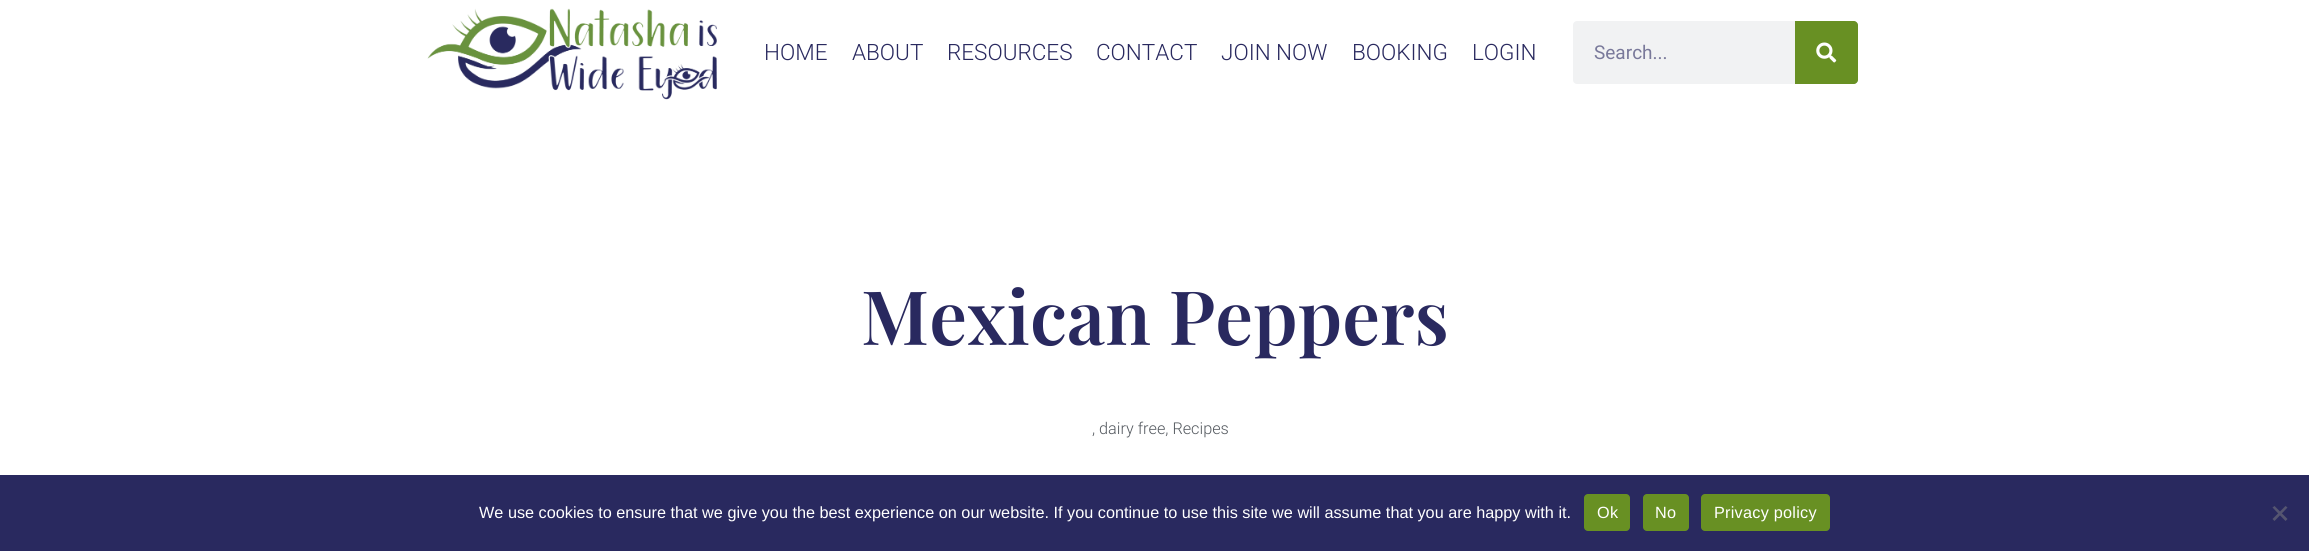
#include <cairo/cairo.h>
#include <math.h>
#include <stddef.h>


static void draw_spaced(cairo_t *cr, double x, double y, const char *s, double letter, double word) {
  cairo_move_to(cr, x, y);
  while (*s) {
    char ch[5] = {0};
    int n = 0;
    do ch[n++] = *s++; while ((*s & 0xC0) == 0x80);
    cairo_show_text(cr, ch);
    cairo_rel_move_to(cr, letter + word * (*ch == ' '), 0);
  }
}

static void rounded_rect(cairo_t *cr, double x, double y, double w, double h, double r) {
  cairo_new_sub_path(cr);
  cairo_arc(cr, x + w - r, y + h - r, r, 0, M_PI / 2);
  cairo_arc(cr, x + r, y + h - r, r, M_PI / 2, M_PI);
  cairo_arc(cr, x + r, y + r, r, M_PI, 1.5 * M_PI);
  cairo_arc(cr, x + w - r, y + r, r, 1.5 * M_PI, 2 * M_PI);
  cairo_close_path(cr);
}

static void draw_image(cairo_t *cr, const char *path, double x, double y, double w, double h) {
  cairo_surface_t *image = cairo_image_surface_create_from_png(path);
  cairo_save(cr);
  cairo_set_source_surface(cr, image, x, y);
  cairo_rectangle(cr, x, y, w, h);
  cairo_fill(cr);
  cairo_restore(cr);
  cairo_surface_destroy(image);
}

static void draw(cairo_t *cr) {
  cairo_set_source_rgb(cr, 1, 1, 1);
  cairo_paint(cr);
  draw_image(cr, "images/1.png", 427, 8, 290, 92);
  cairo_set_source_rgb(cr, 241 / 255.0, 242 / 255.0, 243 / 255.0);
  rounded_rect(cr, 1573, 21, 285, 63, 4);
  cairo_fill(cr);
  cairo_set_source_rgb(cr, 104 / 255.0, 144 / 255.0, 35 / 255.0);
  cairo_new_path(cr);
  cairo_move_to(cr, 1795, 21);
  cairo_line_to(cr, 1854, 21);
  cairo_curve_to(cr, 1856, 21, 1858, 23, 1858, 25);
  cairo_line_to(cr, 1858, 80);
  cairo_curve_to(cr, 1858, 82, 1856, 84, 1854, 84);
  cairo_line_to(cr, 1795, 84);
  cairo_close_path(cr);
  cairo_fill(cr);
  draw_image(cr, "images/2.png", 1816, 42, 21, 21);
  cairo_set_source_rgb(cr, 41 / 255.0, 41 / 255.0, 95 / 255.0);
  cairo_rectangle(cr, 0, 475, 2309, 76);
  cairo_fill(cr);
  cairo_set_source_rgb(cr, 104 / 255.0, 144 / 255.0, 35 / 255.0);
  rounded_rect(cr, 1584, 494, 46, 37, 4);
  cairo_fill(cr);
  rounded_rect(cr, 1643, 494, 46, 37, 4);
  cairo_fill(cr);
  rounded_rect(cr, 1701, 494, 129, 37, 4);
  cairo_fill(cr);
  cairo_set_source_rgb(cr, 85 / 255.0, 85 / 255.0, 112 / 255.0);
  cairo_new_path(cr);
  cairo_move_to(cr, 2285.5, 506);
  cairo_line_to(cr, 2287.5, 507.5);
  cairo_line_to(cr, 2274.5, 521);
  cairo_line_to(cr, 2272.5, 519);
  cairo_close_path(cr);
  cairo_fill(cr);
  cairo_new_path(cr);
  cairo_move_to(cr, 2272.5, 507.5);
  cairo_line_to(cr, 2274.5, 506);
  cairo_line_to(cr, 2287.5, 519);
  cairo_line_to(cr, 2285.5, 521);
  cairo_close_path(cr);
  cairo_fill(cr);
  cairo_select_font_face(cr, "Roboto Light", CAIRO_FONT_SLANT_NORMAL, CAIRO_FONT_WEIGHT_NORMAL);
  cairo_set_font_size(cr, 22.5);
  cairo_set_source_rgb(cr, 41 / 255.0, 41 / 255.0, 95 / 255.0);
  cairo_move_to(cr, 764, 60);
  cairo_show_text(cr, "HOME");
  cairo_move_to(cr, 852, 60);
  cairo_show_text(cr, "ABOUT");
  cairo_move_to(cr, 947, 60);
  cairo_show_text(cr, "RESOURCES");
  cairo_move_to(cr, 1096, 60);
  cairo_show_text(cr, "CONTACT");
  cairo_move_to(cr, 1221, 60);
  cairo_show_text(cr, "JOIN NOW");
  cairo_move_to(cr, 1352, 60);
  cairo_show_text(cr, "BOOKING");
  cairo_move_to(cr, 1472, 60);
  cairo_show_text(cr, "LOGIN");
  cairo_select_font_face(cr, "Roboto", CAIRO_FONT_SLANT_NORMAL, CAIRO_FONT_WEIGHT_NORMAL);
  cairo_set_font_size(cr, 19);
  cairo_set_source_rgb(cr, 121 / 255.0, 121 / 255.0, 154 / 255.0);
  cairo_move_to(cr, 1594, 59);
  cairo_show_text(cr, "Search...");
  cairo_select_font_face(cr, "Playfair Display SemiBold", CAIRO_FONT_SLANT_NORMAL, CAIRO_FONT_WEIGHT_NORMAL);
  cairo_set_font_size(cr, 75);
  cairo_set_source_rgb(cr, 41 / 255.0, 41 / 255.0, 95 / 255.0);
  cairo_move_to(cr, 861, 345);
  cairo_show_text(cr, "Mexican Peppers");
  cairo_select_font_face(cr, "Roboto Light", CAIRO_FONT_SLANT_NORMAL, CAIRO_FONT_WEIGHT_NORMAL);
  cairo_set_font_size(cr, 16.25);
  cairo_set_source_rgb(cr, 84 / 255.0, 89 / 255.0, 95 / 255.0);
  cairo_move_to(cr, 1092, 434);
  cairo_show_text(cr, ", dairy free, Recipes");
  cairo_select_font_face(cr, "Liberation Sans", CAIRO_FONT_SLANT_NORMAL, CAIRO_FONT_WEIGHT_NORMAL);
  cairo_set_source_rgb(cr, 1, 1, 1);
  cairo_move_to(cr, 479, 518);
  cairo_show_text(cr, "We use cookies to ensure that we give you the best experience on our website. If you continue to use this site we will assume that you are happy with it.");
  draw_spaced(cr, 1597, 518, "Ok", 0.25, 0);
  draw_spaced(cr, 1655, 518, "No", 0.25, 0);
  draw_spaced(cr, 1714, 518, "Privacy policy", 0.25, 0);
}

int main(void) {
  cairo_surface_t *surface = cairo_image_surface_create(CAIRO_FORMAT_RGB24, 2309, 551);
  cairo_t *cr = cairo_create(surface);
  cairo_font_options_t *options = cairo_font_options_create();
  cairo_font_options_set_hint_metrics(options, CAIRO_HINT_METRICS_OFF);
  cairo_font_options_set_hint_style(options, CAIRO_HINT_STYLE_NONE);
  cairo_set_font_options(cr, options);
  cairo_set_miter_limit(cr, 4);
  draw(cr);
  cairo_surface_write_to_png(surface, "out.png");
  cairo_font_options_destroy(options);
  cairo_destroy(cr);
  cairo_surface_destroy(surface);
  return 0;
}
